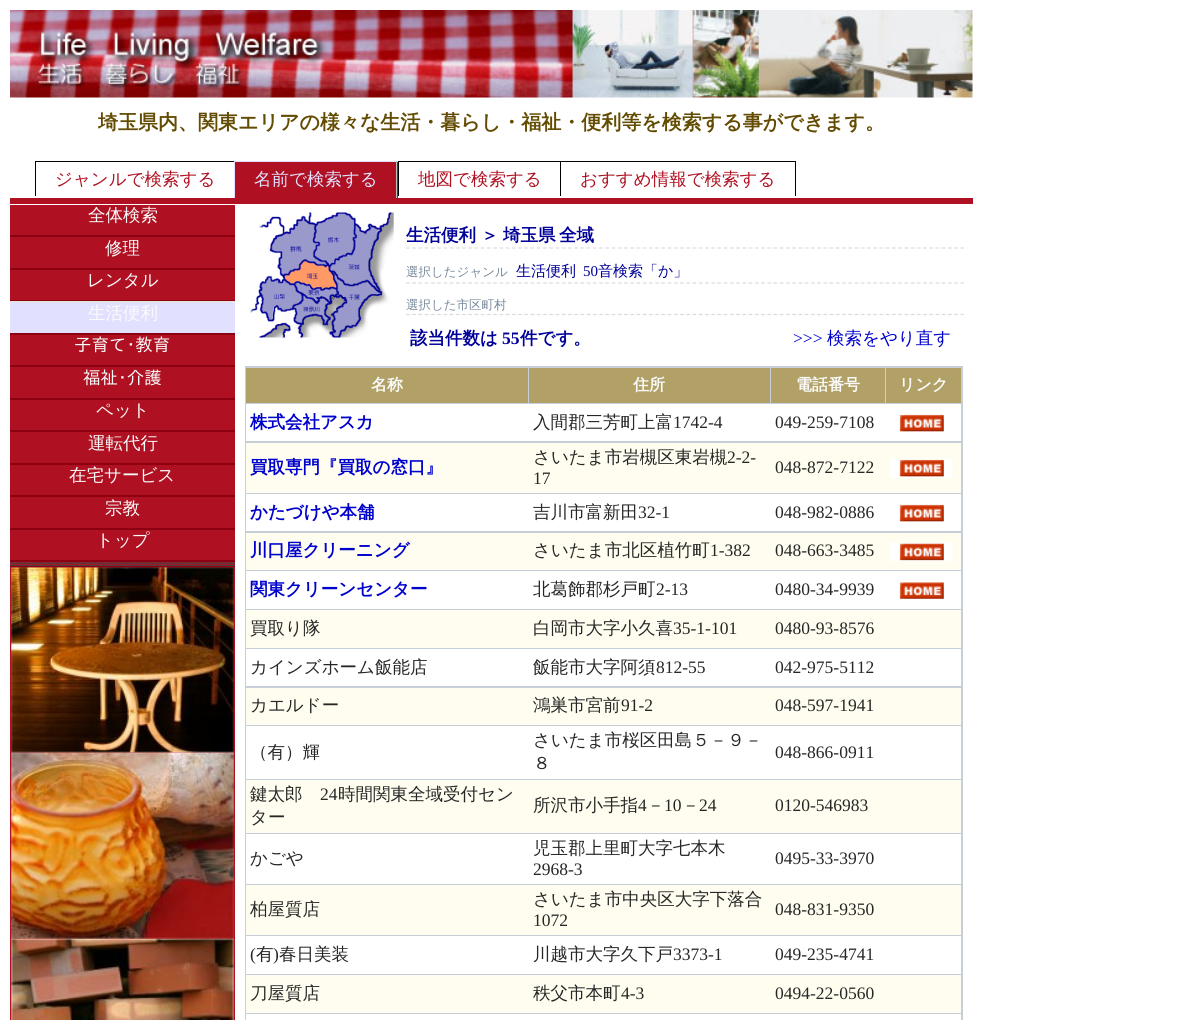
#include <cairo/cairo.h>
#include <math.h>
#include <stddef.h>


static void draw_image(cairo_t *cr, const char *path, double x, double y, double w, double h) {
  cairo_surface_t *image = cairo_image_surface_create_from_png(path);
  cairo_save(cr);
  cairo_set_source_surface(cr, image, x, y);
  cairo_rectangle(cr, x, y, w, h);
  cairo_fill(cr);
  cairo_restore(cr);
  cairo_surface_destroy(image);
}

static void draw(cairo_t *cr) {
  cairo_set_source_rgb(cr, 1, 1, 1);
  cairo_paint(cr);
  draw_image(cr, "images/1.png", 10, 10, 963, 88);
  cairo_set_source_rgb(cr, 0, 0, 0);
  cairo_rectangle(cr, 35, 161, 199, 1);
  cairo_fill(cr);
  cairo_rectangle(cr, 35, 161, 1, 35);
  cairo_fill(cr);
  cairo_set_source_rgb(cr, 175 / 255.0, 17 / 255.0, 34 / 255.0);
  cairo_rectangle(cr, 235, 162, 163, 36);
  cairo_fill(cr);
  cairo_set_source_rgb(cr, 225 / 255.0, 225 / 255.0, 1);
  cairo_rectangle(cr, 234, 161, 164, 1);
  cairo_fill(cr);
  cairo_set_source_rgb(cr, 192 / 255.0, 192 / 255.0, 192 / 255.0);
  cairo_rectangle(cr, 396, 161, 1, 37);
  cairo_fill(cr);
  cairo_set_source_rgb(cr, 225 / 255.0, 225 / 255.0, 1);
  cairo_rectangle(cr, 234, 161, 1, 37);
  cairo_fill(cr);
  cairo_set_source_rgb(cr, 0, 0, 0);
  cairo_rectangle(cr, 398, 161, 398, 1);
  cairo_fill(cr);
  cairo_rectangle(cr, 398, 161, 1, 35);
  cairo_fill(cr);
  cairo_rectangle(cr, 795, 161, 1, 35);
  cairo_fill(cr);
  cairo_rectangle(cr, 560, 161, 1, 35);
  cairo_fill(cr);
  cairo_set_source_rgb(cr, 175 / 255.0, 17 / 255.0, 34 / 255.0);
  cairo_rectangle(cr, 10, 198, 963, 6);
  cairo_fill(cr);
  cairo_rectangle(cr, 10, 205, 225, 815);
  cairo_fill(cr);
  cairo_set_source_rgb(cr, 141 / 255.0, 0, 17 / 255.0);
  cairo_rectangle(cr, 10, 235, 225, 2);
  cairo_fill(cr);
  cairo_rectangle(cr, 10, 268, 225, 2);
  cairo_fill(cr);
  cairo_rectangle(cr, 10, 300, 225, 1);
  cairo_fill(cr);
  cairo_set_source_rgb(cr, 225 / 255.0, 225 / 255.0, 1);
  cairo_rectangle(cr, 10, 302, 225, 31);
  cairo_fill(cr);
  cairo_set_source_rgb(cr, 233 / 255.0, 229 / 255.0, 209 / 255.0);
  cairo_rectangle(cr, 10, 301, 225, 1);
  cairo_fill(cr);
  cairo_set_source_rgb(cr, 141 / 255.0, 0, 17 / 255.0);
  cairo_rectangle(cr, 10, 333, 225, 2);
  cairo_fill(cr);
  cairo_rectangle(cr, 10, 365, 225, 2);
  cairo_fill(cr);
  cairo_rectangle(cr, 10, 398, 225, 2);
  cairo_fill(cr);
  cairo_rectangle(cr, 10, 430, 225, 2);
  cairo_fill(cr);
  cairo_rectangle(cr, 10, 463, 225, 2);
  cairo_fill(cr);
  cairo_rectangle(cr, 10, 495, 225, 2);
  cairo_fill(cr);
  cairo_rectangle(cr, 10, 528, 225, 2);
  cairo_fill(cr);
  cairo_rectangle(cr, 10, 560, 225, 2);
  cairo_fill(cr);
  draw_image(cr, "images/2.png", 10, 562, 225, 6);
  cairo_rectangle(cr, 10, 566, 225, 1);
  cairo_fill(cr);
  draw_image(cr, "images/3.png", 11, 567, 223, 186);
  draw_image(cr, "images/4.png", 11, 752, 223, 187);
  draw_image(cr, "images/5.png", 11, 938, 223, 82);
  draw_image(cr, "images/6.png", 250, 212, 144, 126);
  cairo_new_path(cr);
  cairo_move_to(cr, 406, 248);
  cairo_line_to(cr, 964, 248);
  cairo_set_source_rgb(cr, 220 / 255.0, 220 / 255.0, 220 / 255.0);
  cairo_set_line_width(cr, 1.2);
  cairo_set_dash(cr, (double[]){3.75, 2.48}, 2, 0);
  cairo_stroke(cr);
  cairo_new_path(cr);
  cairo_move_to(cr, 406, 283);
  cairo_line_to(cr, 964, 283);
  cairo_stroke(cr);
  cairo_new_path(cr);
  cairo_move_to(cr, 406, 314.5);
  cairo_line_to(cr, 964, 314.5);
  cairo_stroke(cr);
  cairo_set_source_rgb(cr, 198 / 255.0, 206 / 255.0, 215 / 255.0);
  cairo_rectangle(cr, 245, 366, 718, 654);
  cairo_fill(cr);
  cairo_set_source_rgb(cr, 177 / 255.0, 161 / 255.0, 102 / 255.0);
  cairo_rectangle(cr, 246, 368, 282, 35);
  cairo_fill(cr);
  cairo_rectangle(cr, 529, 368, 241, 35);
  cairo_fill(cr);
  cairo_rectangle(cr, 771, 368, 114, 35);
  cairo_fill(cr);
  cairo_rectangle(cr, 886, 368, 75, 35);
  cairo_fill(cr);
  cairo_set_source_rgb(cr, 1, 1, 1);
  cairo_rectangle(cr, 246, 404, 715, 37);
  cairo_fill(cr);
  draw_image(cr, "images/7.png", 899, 414, 45, 18);
  cairo_set_source_rgb(cr, 1, 253 / 255.0, 239 / 255.0);
  cairo_rectangle(cr, 246, 443, 715, 50);
  cairo_fill(cr);
  draw_image(cr, "images/8.png", 890, 458, 63, 20);
  cairo_set_source_rgb(cr, 1, 1, 1);
  cairo_rectangle(cr, 246, 494, 715, 37);
  cairo_fill(cr);
  draw_image(cr, "images/7.png", 899, 504, 45, 18);
  cairo_set_source_rgb(cr, 1, 253 / 255.0, 239 / 255.0);
  cairo_rectangle(cr, 246, 533, 715, 37);
  cairo_fill(cr);
  draw_image(cr, "images/9.png", 890, 542, 63, 20);
  cairo_set_source_rgb(cr, 1, 1, 1);
  cairo_rectangle(cr, 246, 571, 715, 38);
  cairo_fill(cr);
  draw_image(cr, "images/10.png", 899, 582, 45, 17);
  cairo_set_source_rgb(cr, 1, 253 / 255.0, 239 / 255.0);
  cairo_rectangle(cr, 246, 610, 715, 38);
  cairo_fill(cr);
  cairo_set_source_rgb(cr, 1, 1, 1);
  cairo_rectangle(cr, 246, 649, 715, 37);
  cairo_fill(cr);
  cairo_set_source_rgb(cr, 1, 253 / 255.0, 239 / 255.0);
  cairo_rectangle(cr, 246, 688, 715, 37);
  cairo_fill(cr);
  cairo_set_source_rgb(cr, 1, 1, 1);
  cairo_rectangle(cr, 246, 726, 715, 53);
  cairo_fill(cr);
  cairo_set_source_rgb(cr, 1, 253 / 255.0, 239 / 255.0);
  cairo_rectangle(cr, 246, 780, 715, 53);
  cairo_fill(cr);
  cairo_set_source_rgb(cr, 1, 1, 1);
  cairo_rectangle(cr, 246, 834, 715, 50);
  cairo_fill(cr);
  cairo_set_source_rgb(cr, 1, 253 / 255.0, 239 / 255.0);
  cairo_rectangle(cr, 246, 885, 715, 50);
  cairo_fill(cr);
  cairo_set_source_rgb(cr, 1, 1, 1);
  cairo_rectangle(cr, 246, 936, 715, 38);
  cairo_fill(cr);
  cairo_set_source_rgb(cr, 1, 253 / 255.0, 239 / 255.0);
  cairo_rectangle(cr, 246, 975, 715, 38);
  cairo_fill(cr);
  cairo_set_source_rgb(cr, 1, 1, 1);
  cairo_rectangle(cr, 246, 1014, 715, 6);
  cairo_fill(cr);
  cairo_select_font_face(cr, "WenQuanYi Zen Hei", CAIRO_FONT_SLANT_NORMAL, CAIRO_FONT_WEIGHT_BOLD);
  cairo_set_font_size(cr, 20);
  cairo_set_source_rgb(cr, 99 / 255.0, 75 / 255.0, 1 / 255.0);
  cairo_move_to(cr, 98, 129);
  cairo_show_text(cr, "埼玉県内、関東エリアの様々な生活・暮らし・福祉・便利等を検索する事ができます。");
  cairo_select_font_face(cr, "WenQuanYi Zen Hei Medium", CAIRO_FONT_SLANT_NORMAL, CAIRO_FONT_WEIGHT_NORMAL);
  cairo_set_font_size(cr, 17.5);
  cairo_set_source_rgb(cr, 175 / 255.0, 17 / 255.0, 34 / 255.0);
  cairo_move_to(cr, 55, 185);
  cairo_show_text(cr, "ジャンルで検索する");
  cairo_set_source_rgb(cr, 225 / 255.0, 225 / 255.0, 1);
  cairo_move_to(cr, 254, 185);
  cairo_show_text(cr, "名前で検索する");
  cairo_set_source_rgb(cr, 175 / 255.0, 17 / 255.0, 34 / 255.0);
  cairo_move_to(cr, 418, 185);
  cairo_show_text(cr, "地図で検索する");
  cairo_move_to(cr, 580, 185);
  cairo_show_text(cr, "おすすめ情報で検索する");
  cairo_set_source_rgb(cr, 250 / 255.0, 250 / 255.0, 250 / 255.0);
  cairo_move_to(cr, 88, 221);
  cairo_show_text(cr, "全体検索");
  cairo_move_to(cr, 105, 254);
  cairo_show_text(cr, "修理");
  cairo_move_to(cr, 87, 286);
  cairo_show_text(cr, "レンタル");
  cairo_move_to(cr, 88, 319);
  cairo_show_text(cr, "生活便利");
  cairo_select_font_face(cr, "IPAGothic", CAIRO_FONT_SLANT_NORMAL, CAIRO_FONT_WEIGHT_NORMAL);
  cairo_move_to(cr, 74, 351);
  cairo_show_text(cr, "子育て･教育");
  cairo_move_to(cr, 83, 384);
  cairo_show_text(cr, "福祉･介護");
  cairo_select_font_face(cr, "WenQuanYi Zen Hei Medium", CAIRO_FONT_SLANT_NORMAL, CAIRO_FONT_WEIGHT_NORMAL);
  cairo_move_to(cr, 96, 416);
  cairo_show_text(cr, "ペット");
  cairo_move_to(cr, 88, 449);
  cairo_show_text(cr, "運転代行");
  cairo_move_to(cr, 69, 481);
  cairo_show_text(cr, "在宅サービス");
  cairo_move_to(cr, 105, 514);
  cairo_show_text(cr, "宗教");
  cairo_move_to(cr, 96, 546);
  cairo_show_text(cr, "トップ");
  cairo_select_font_face(cr, "WenQuanYi Zen Hei", CAIRO_FONT_SLANT_NORMAL, CAIRO_FONT_WEIGHT_BOLD);
  cairo_set_source_rgb(cr, 0, 0, 153 / 255.0);
  cairo_move_to(cr, 406, 241);
  cairo_show_text(cr, "生活便利");
  cairo_move_to(cr, 481, 241);
  cairo_show_text(cr, "＞");
  cairo_move_to(cr, 503, 241);
  cairo_show_text(cr, "埼玉県");
  cairo_move_to(cr, 559, 241);
  cairo_show_text(cr, "全域");
  cairo_select_font_face(cr, "WenQuanYi Zen Hei Medium", CAIRO_FONT_SLANT_NORMAL, CAIRO_FONT_WEIGHT_NORMAL);
  cairo_set_font_size(cr, 12.5);
  cairo_set_source_rgb(cr, 119 / 255.0, 136 / 255.0, 153 / 255.0);
  cairo_move_to(cr, 406, 276);
  cairo_show_text(cr, "選択したジャンル");
  cairo_set_font_size(cr, 15);
  cairo_set_source_rgb(cr, 0, 0, 153 / 255.0);
  cairo_move_to(cr, 516, 276);
  cairo_show_text(cr, "生活便利");
  cairo_select_font_face(cr, "Liberation Serif", CAIRO_FONT_SLANT_NORMAL, CAIRO_FONT_WEIGHT_NORMAL);
  cairo_move_to(cr, 583, 276);
  cairo_show_text(cr, "50");
  cairo_select_font_face(cr, "WenQuanYi Zen Hei Medium", CAIRO_FONT_SLANT_NORMAL, CAIRO_FONT_WEIGHT_NORMAL);
  cairo_move_to(cr, 598, 276);
  cairo_show_text(cr, "音検索「か」");
  cairo_set_font_size(cr, 12.5);
  cairo_set_source_rgb(cr, 119 / 255.0, 136 / 255.0, 153 / 255.0);
  cairo_move_to(cr, 406, 309);
  cairo_show_text(cr, "選択した市区町村");
  cairo_select_font_face(cr, "WenQuanYi Zen Hei", CAIRO_FONT_SLANT_NORMAL, CAIRO_FONT_WEIGHT_BOLD);
  cairo_set_font_size(cr, 17.5);
  cairo_set_source_rgb(cr, 0, 0, 153 / 255.0);
  cairo_move_to(cr, 410, 344);
  cairo_show_text(cr, "該当件数は");
  cairo_select_font_face(cr, "Liberation Serif", CAIRO_FONT_SLANT_NORMAL, CAIRO_FONT_WEIGHT_BOLD);
  cairo_move_to(cr, 502, 344);
  cairo_show_text(cr, "55");
  cairo_select_font_face(cr, "WenQuanYi Zen Hei", CAIRO_FONT_SLANT_NORMAL, CAIRO_FONT_WEIGHT_BOLD);
  cairo_move_to(cr, 520, 344);
  cairo_show_text(cr, "件です。");
  cairo_select_font_face(cr, "Liberation Serif", CAIRO_FONT_SLANT_NORMAL, CAIRO_FONT_WEIGHT_NORMAL);
  cairo_set_source_rgb(cr, 0, 0, 205 / 255.0);
  cairo_move_to(cr, 793, 344);
  cairo_show_text(cr, ">>>");
  cairo_select_font_face(cr, "WenQuanYi Zen Hei Medium", CAIRO_FONT_SLANT_NORMAL, CAIRO_FONT_WEIGHT_NORMAL);
  cairo_move_to(cr, 827, 344);
  cairo_show_text(cr, "検索をやり直す");
  cairo_select_font_face(cr, "WenQuanYi Zen Hei", CAIRO_FONT_SLANT_NORMAL, CAIRO_FONT_WEIGHT_BOLD);
  cairo_set_font_size(cr, 16);
  cairo_set_source_rgb(cr, 250 / 255.0, 250 / 255.0, 250 / 255.0);
  cairo_move_to(cr, 371, 390);
  cairo_show_text(cr, "名称");
  cairo_move_to(cr, 633, 390);
  cairo_show_text(cr, "住所");
  cairo_move_to(cr, 796, 390);
  cairo_show_text(cr, "電話番号");
  cairo_move_to(cr, 899, 390);
  cairo_show_text(cr, "リンク");
  cairo_set_font_size(cr, 17.5);
  cairo_set_source_rgb(cr, 0, 0, 205 / 255.0);
  cairo_move_to(cr, 250, 428);
  cairo_show_text(cr, "株式会社アスカ");
  cairo_select_font_face(cr, "WenQuanYi Zen Hei Medium", CAIRO_FONT_SLANT_NORMAL, CAIRO_FONT_WEIGHT_NORMAL);
  cairo_set_source_rgb(cr, 38 / 255.0, 38 / 255.0, 38 / 255.0);
  cairo_move_to(cr, 533, 428);
  cairo_show_text(cr, "入間郡三芳町上富");
  cairo_select_font_face(cr, "Liberation Serif", CAIRO_FONT_SLANT_NORMAL, CAIRO_FONT_WEIGHT_NORMAL);
  cairo_move_to(cr, 673, 428);
  cairo_show_text(cr, "1742-4");
  cairo_move_to(cr, 775, 428);
  cairo_show_text(cr, "049-259-7108");
  cairo_select_font_face(cr, "WenQuanYi Zen Hei", CAIRO_FONT_SLANT_NORMAL, CAIRO_FONT_WEIGHT_BOLD);
  cairo_set_source_rgb(cr, 0, 0, 205 / 255.0);
  cairo_move_to(cr, 250, 473);
  cairo_show_text(cr, "買取専門『買取の窓口』");
  cairo_select_font_face(cr, "WenQuanYi Zen Hei Medium", CAIRO_FONT_SLANT_NORMAL, CAIRO_FONT_WEIGHT_NORMAL);
  cairo_set_source_rgb(cr, 38 / 255.0, 38 / 255.0, 38 / 255.0);
  cairo_move_to(cr, 533, 463);
  cairo_show_text(cr, "さいたま市岩槻区東岩槻");
  cairo_select_font_face(cr, "Liberation Serif", CAIRO_FONT_SLANT_NORMAL, CAIRO_FONT_WEIGHT_NORMAL);
  cairo_move_to(cr, 727, 463);
  cairo_show_text(cr, "2-2-");
  cairo_move_to(cr, 533, 484);
  cairo_show_text(cr, "17");
  cairo_move_to(cr, 775, 473);
  cairo_show_text(cr, "048-872-7122");
  cairo_select_font_face(cr, "WenQuanYi Zen Hei", CAIRO_FONT_SLANT_NORMAL, CAIRO_FONT_WEIGHT_BOLD);
  cairo_set_source_rgb(cr, 0, 0, 205 / 255.0);
  cairo_move_to(cr, 250, 518);
  cairo_show_text(cr, "かたづけや本舗");
  cairo_select_font_face(cr, "WenQuanYi Zen Hei Medium", CAIRO_FONT_SLANT_NORMAL, CAIRO_FONT_WEIGHT_NORMAL);
  cairo_set_source_rgb(cr, 38 / 255.0, 38 / 255.0, 38 / 255.0);
  cairo_move_to(cr, 533, 518);
  cairo_show_text(cr, "吉川市富新田");
  cairo_select_font_face(cr, "Liberation Serif", CAIRO_FONT_SLANT_NORMAL, CAIRO_FONT_WEIGHT_NORMAL);
  cairo_move_to(cr, 638, 518);
  cairo_show_text(cr, "32-1");
  cairo_move_to(cr, 775, 518);
  cairo_show_text(cr, "048-982-0886");
  cairo_select_font_face(cr, "WenQuanYi Zen Hei", CAIRO_FONT_SLANT_NORMAL, CAIRO_FONT_WEIGHT_BOLD);
  cairo_set_source_rgb(cr, 0, 0, 205 / 255.0);
  cairo_move_to(cr, 250, 556);
  cairo_show_text(cr, "川口屋クリーニング");
  cairo_select_font_face(cr, "WenQuanYi Zen Hei Medium", CAIRO_FONT_SLANT_NORMAL, CAIRO_FONT_WEIGHT_NORMAL);
  cairo_set_source_rgb(cr, 38 / 255.0, 38 / 255.0, 38 / 255.0);
  cairo_move_to(cr, 533, 556);
  cairo_show_text(cr, "さいたま市北区植竹町");
  cairo_select_font_face(cr, "Liberation Serif", CAIRO_FONT_SLANT_NORMAL, CAIRO_FONT_WEIGHT_NORMAL);
  cairo_move_to(cr, 710, 556);
  cairo_show_text(cr, "1-382");
  cairo_move_to(cr, 775, 556);
  cairo_show_text(cr, "048-663-3485");
  cairo_select_font_face(cr, "WenQuanYi Zen Hei", CAIRO_FONT_SLANT_NORMAL, CAIRO_FONT_WEIGHT_BOLD);
  cairo_set_source_rgb(cr, 0, 0, 205 / 255.0);
  cairo_move_to(cr, 250, 595);
  cairo_show_text(cr, "関東クリーンセンター");
  cairo_select_font_face(cr, "WenQuanYi Zen Hei Medium", CAIRO_FONT_SLANT_NORMAL, CAIRO_FONT_WEIGHT_NORMAL);
  cairo_set_source_rgb(cr, 38 / 255.0, 38 / 255.0, 38 / 255.0);
  cairo_move_to(cr, 533, 595);
  cairo_show_text(cr, "北葛飾郡杉戸町");
  cairo_select_font_face(cr, "Liberation Serif", CAIRO_FONT_SLANT_NORMAL, CAIRO_FONT_WEIGHT_NORMAL);
  cairo_move_to(cr, 656, 595);
  cairo_show_text(cr, "2-13");
  cairo_move_to(cr, 775, 595);
  cairo_show_text(cr, "0480-34-9939");
  cairo_select_font_face(cr, "WenQuanYi Zen Hei Medium", CAIRO_FONT_SLANT_NORMAL, CAIRO_FONT_WEIGHT_NORMAL);
  cairo_move_to(cr, 250, 634);
  cairo_show_text(cr, "買取り隊");
  cairo_move_to(cr, 533, 634);
  cairo_show_text(cr, "白岡市大字小久喜");
  cairo_select_font_face(cr, "Liberation Serif", CAIRO_FONT_SLANT_NORMAL, CAIRO_FONT_WEIGHT_NORMAL);
  cairo_move_to(cr, 673, 634);
  cairo_show_text(cr, "35-1-101");
  cairo_move_to(cr, 775, 634);
  cairo_show_text(cr, "0480-93-8576");
  cairo_select_font_face(cr, "WenQuanYi Zen Hei Medium", CAIRO_FONT_SLANT_NORMAL, CAIRO_FONT_WEIGHT_NORMAL);
  cairo_move_to(cr, 250, 673);
  cairo_show_text(cr, "カインズホーム飯能店");
  cairo_move_to(cr, 533, 673);
  cairo_show_text(cr, "飯能市大字阿須");
  cairo_select_font_face(cr, "Liberation Serif", CAIRO_FONT_SLANT_NORMAL, CAIRO_FONT_WEIGHT_NORMAL);
  cairo_move_to(cr, 656, 673);
  cairo_show_text(cr, "812-55");
  cairo_move_to(cr, 775, 673);
  cairo_show_text(cr, "042-975-5112");
  cairo_select_font_face(cr, "WenQuanYi Zen Hei Medium", CAIRO_FONT_SLANT_NORMAL, CAIRO_FONT_WEIGHT_NORMAL);
  cairo_move_to(cr, 250, 711);
  cairo_show_text(cr, "カエルドー");
  cairo_move_to(cr, 533, 711);
  cairo_show_text(cr, "鴻巣市宮前");
  cairo_select_font_face(cr, "Liberation Serif", CAIRO_FONT_SLANT_NORMAL, CAIRO_FONT_WEIGHT_NORMAL);
  cairo_move_to(cr, 621, 711);
  cairo_show_text(cr, "91-2");
  cairo_move_to(cr, 775, 711);
  cairo_show_text(cr, "048-597-1941");
  cairo_select_font_face(cr, "WenQuanYi Zen Hei Medium", CAIRO_FONT_SLANT_NORMAL, CAIRO_FONT_WEIGHT_NORMAL);
  cairo_move_to(cr, 250, 758);
  cairo_show_text(cr, "（有）輝");
  cairo_move_to(cr, 533, 746);
  cairo_show_text(cr, "さいたま市桜区田島５－９－");
  cairo_move_to(cr, 533, 769);
  cairo_show_text(cr, "８");
  cairo_select_font_face(cr, "Liberation Serif", CAIRO_FONT_SLANT_NORMAL, CAIRO_FONT_WEIGHT_NORMAL);
  cairo_move_to(cr, 775, 758);
  cairo_show_text(cr, "048-866-0911");
  cairo_select_font_face(cr, "WenQuanYi Zen Hei Medium", CAIRO_FONT_SLANT_NORMAL, CAIRO_FONT_WEIGHT_NORMAL);
  cairo_move_to(cr, 250, 800);
  cairo_show_text(cr, "鍵太郎");
  cairo_select_font_face(cr, "Liberation Serif", CAIRO_FONT_SLANT_NORMAL, CAIRO_FONT_WEIGHT_NORMAL);
  cairo_move_to(cr, 320, 800);
  cairo_show_text(cr, "24");
  cairo_select_font_face(cr, "WenQuanYi Zen Hei Medium", CAIRO_FONT_SLANT_NORMAL, CAIRO_FONT_WEIGHT_NORMAL);
  cairo_move_to(cr, 338, 800);
  cairo_show_text(cr, "時間関東全域受付セン");
  cairo_move_to(cr, 250, 823);
  cairo_show_text(cr, "ター");
  cairo_move_to(cr, 533, 811);
  cairo_show_text(cr, "所沢市小手指");
  cairo_select_font_face(cr, "Liberation Serif", CAIRO_FONT_SLANT_NORMAL, CAIRO_FONT_WEIGHT_NORMAL);
  cairo_move_to(cr, 638, 811);
  cairo_show_text(cr, "4");
  cairo_select_font_face(cr, "WenQuanYi Zen Hei Medium", CAIRO_FONT_SLANT_NORMAL, CAIRO_FONT_WEIGHT_NORMAL);
  cairo_move_to(cr, 647, 811);
  cairo_show_text(cr, "－");
  cairo_select_font_face(cr, "Liberation Serif", CAIRO_FONT_SLANT_NORMAL, CAIRO_FONT_WEIGHT_NORMAL);
  cairo_move_to(cr, 664, 811);
  cairo_show_text(cr, "10");
  cairo_select_font_face(cr, "WenQuanYi Zen Hei Medium", CAIRO_FONT_SLANT_NORMAL, CAIRO_FONT_WEIGHT_NORMAL);
  cairo_move_to(cr, 682, 811);
  cairo_show_text(cr, "－");
  cairo_select_font_face(cr, "Liberation Serif", CAIRO_FONT_SLANT_NORMAL, CAIRO_FONT_WEIGHT_NORMAL);
  cairo_move_to(cr, 699, 811);
  cairo_show_text(cr, "24");
  cairo_move_to(cr, 775, 811);
  cairo_show_text(cr, "0120-546983");
  cairo_select_font_face(cr, "WenQuanYi Zen Hei Medium", CAIRO_FONT_SLANT_NORMAL, CAIRO_FONT_WEIGHT_NORMAL);
  cairo_move_to(cr, 250, 864);
  cairo_show_text(cr, "かごや");
  cairo_move_to(cr, 533, 854);
  cairo_show_text(cr, "児玉郡上里町大字七本木");
  cairo_select_font_face(cr, "Liberation Serif", CAIRO_FONT_SLANT_NORMAL, CAIRO_FONT_WEIGHT_NORMAL);
  cairo_move_to(cr, 533, 875);
  cairo_show_text(cr, "2968-3");
  cairo_move_to(cr, 775, 864);
  cairo_show_text(cr, "0495-33-3970");
  cairo_select_font_face(cr, "WenQuanYi Zen Hei Medium", CAIRO_FONT_SLANT_NORMAL, CAIRO_FONT_WEIGHT_NORMAL);
  cairo_move_to(cr, 250, 915);
  cairo_show_text(cr, "柏屋質店");
  cairo_move_to(cr, 533, 905);
  cairo_show_text(cr, "さいたま市中央区大字下落合");
  cairo_select_font_face(cr, "Liberation Serif", CAIRO_FONT_SLANT_NORMAL, CAIRO_FONT_WEIGHT_NORMAL);
  cairo_move_to(cr, 533, 926);
  cairo_show_text(cr, "1072");
  cairo_move_to(cr, 775, 915);
  cairo_show_text(cr, "048-831-9350");
  cairo_move_to(cr, 250, 960);
  cairo_show_text(cr, "(");
  cairo_select_font_face(cr, "WenQuanYi Zen Hei Medium", CAIRO_FONT_SLANT_NORMAL, CAIRO_FONT_WEIGHT_NORMAL);
  cairo_move_to(cr, 256, 960);
  cairo_show_text(cr, "有");
  cairo_select_font_face(cr, "Liberation Serif", CAIRO_FONT_SLANT_NORMAL, CAIRO_FONT_WEIGHT_NORMAL);
  cairo_move_to(cr, 273, 960);
  cairo_show_text(cr, ")");
  cairo_select_font_face(cr, "WenQuanYi Zen Hei Medium", CAIRO_FONT_SLANT_NORMAL, CAIRO_FONT_WEIGHT_NORMAL);
  cairo_move_to(cr, 279, 960);
  cairo_show_text(cr, "春日美装");
  cairo_move_to(cr, 533, 960);
  cairo_show_text(cr, "川越市大字久下戸");
  cairo_select_font_face(cr, "Liberation Serif", CAIRO_FONT_SLANT_NORMAL, CAIRO_FONT_WEIGHT_NORMAL);
  cairo_move_to(cr, 673, 960);
  cairo_show_text(cr, "3373-1");
  cairo_move_to(cr, 775, 960);
  cairo_show_text(cr, "049-235-4741");
  cairo_select_font_face(cr, "WenQuanYi Zen Hei Medium", CAIRO_FONT_SLANT_NORMAL, CAIRO_FONT_WEIGHT_NORMAL);
  cairo_move_to(cr, 250, 999);
  cairo_show_text(cr, "刀屋質店");
  cairo_move_to(cr, 533, 999);
  cairo_show_text(cr, "秩父市本町");
  cairo_select_font_face(cr, "Liberation Serif", CAIRO_FONT_SLANT_NORMAL, CAIRO_FONT_WEIGHT_NORMAL);
  cairo_move_to(cr, 621, 999);
  cairo_show_text(cr, "4-3");
  cairo_move_to(cr, 775, 999);
  cairo_show_text(cr, "0494-22-0560");
}

int main(void) {
  cairo_surface_t *surface = cairo_image_surface_create(CAIRO_FORMAT_RGB24, 1204, 1020);
  cairo_t *cr = cairo_create(surface);
  cairo_font_options_t *options = cairo_font_options_create();
  cairo_font_options_set_hint_metrics(options, CAIRO_HINT_METRICS_OFF);
  cairo_font_options_set_hint_style(options, CAIRO_HINT_STYLE_NONE);
  cairo_set_font_options(cr, options);
  cairo_set_miter_limit(cr, 4);
  draw(cr);
  cairo_surface_write_to_png(surface, "out.png");
  cairo_font_options_destroy(options);
  cairo_destroy(cr);
  cairo_surface_destroy(surface);
  return 0;
}
